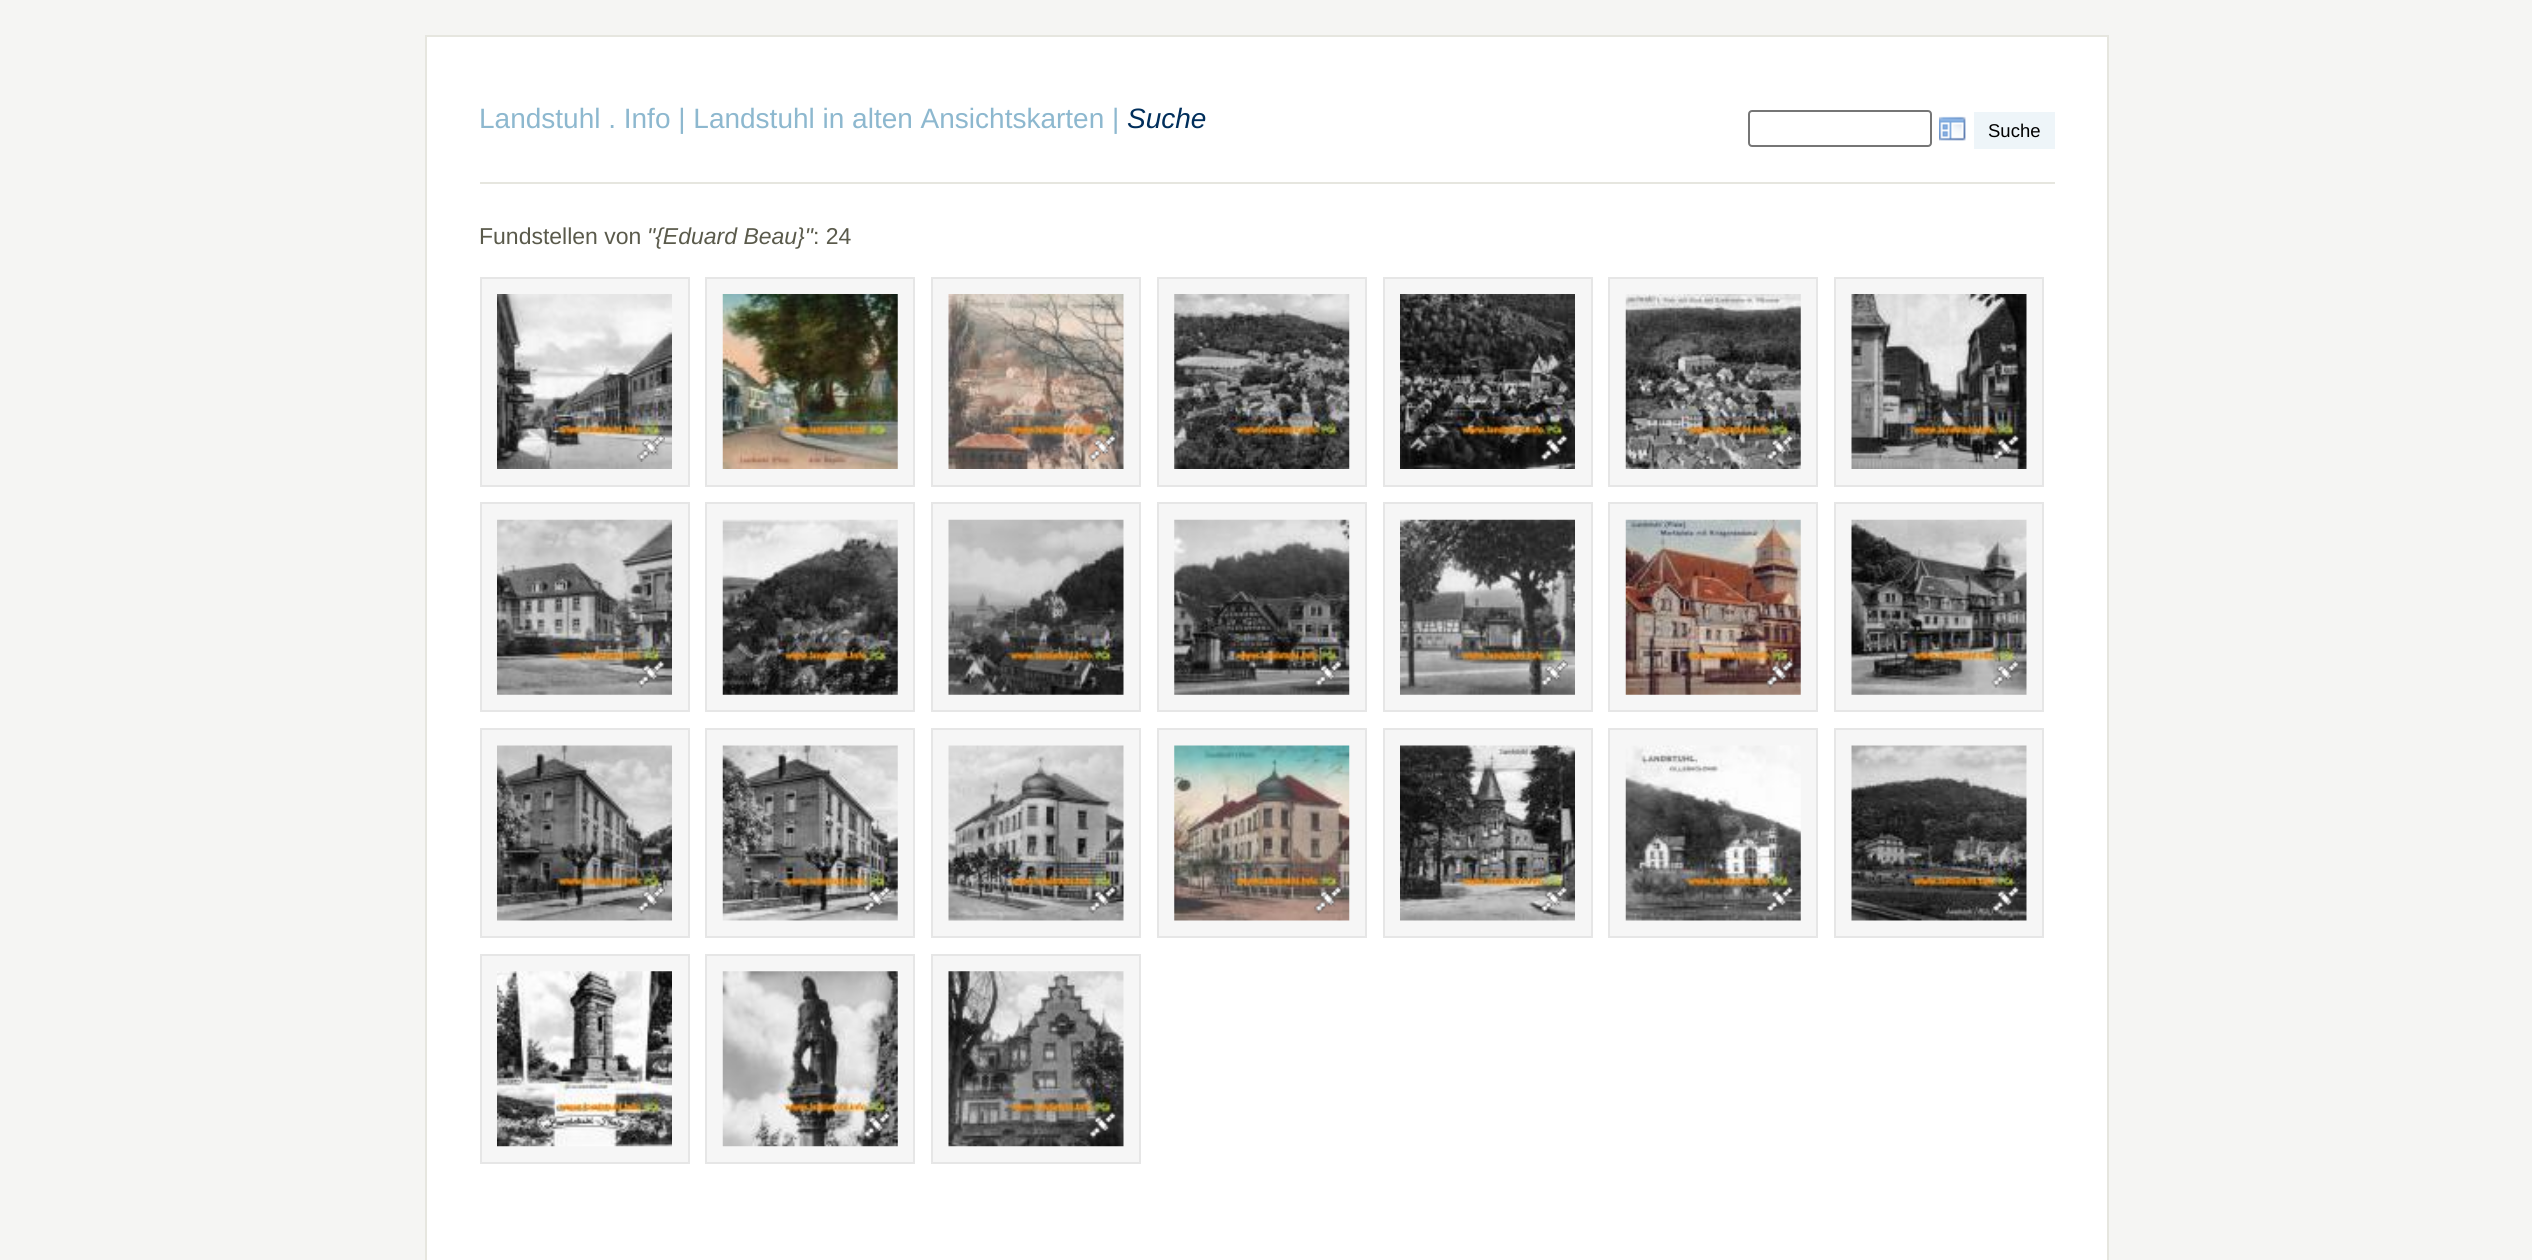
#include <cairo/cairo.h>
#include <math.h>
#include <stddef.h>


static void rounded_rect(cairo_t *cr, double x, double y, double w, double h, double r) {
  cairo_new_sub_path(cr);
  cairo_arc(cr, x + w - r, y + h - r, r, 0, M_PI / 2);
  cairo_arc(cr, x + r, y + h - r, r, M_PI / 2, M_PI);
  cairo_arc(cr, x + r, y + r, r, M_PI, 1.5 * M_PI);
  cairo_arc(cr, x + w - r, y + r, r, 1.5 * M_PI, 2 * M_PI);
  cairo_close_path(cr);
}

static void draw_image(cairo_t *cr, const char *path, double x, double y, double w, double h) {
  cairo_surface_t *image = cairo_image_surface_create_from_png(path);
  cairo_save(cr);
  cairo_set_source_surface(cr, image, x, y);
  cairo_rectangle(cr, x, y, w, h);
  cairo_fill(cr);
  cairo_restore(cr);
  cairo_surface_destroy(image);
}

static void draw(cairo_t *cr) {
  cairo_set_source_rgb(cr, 245 / 255.0, 245 / 255.0, 243 / 255.0);
  cairo_paint(cr);
  cairo_set_source_rgb(cr, 1, 1, 1);
  cairo_rectangle(cr, 427, 37, 1680, 1223);
  cairo_fill(cr);
  cairo_set_source_rgb(cr, 230 / 255.0, 230 / 255.0, 223 / 255.0);
  cairo_rectangle(cr, 425, 35, 1684, 2);
  cairo_fill(cr);
  cairo_rectangle(cr, 2107, 35, 2, 1225);
  cairo_fill(cr);
  cairo_rectangle(cr, 425, 35, 2, 1225);
  cairo_fill(cr);
  cairo_rectangle(cr, 480, 182, 1575, 2);
  cairo_fill(cr);
  rounded_rect(cr, 1749, 111, 182, 35, 3);
  cairo_set_source_rgb(cr, 118 / 255.0, 118 / 255.0, 118 / 255.0);
  cairo_stroke(cr);
  draw_image(cr, "images/1.png", 1939, 116, 27, 25);
  cairo_set_source_rgb(cr, 238 / 255.0, 245 / 255.0, 249 / 255.0);
  cairo_rectangle(cr, 1974, 112, 81, 37);
  cairo_fill(cr);
  cairo_set_source_rgb(cr, 246 / 255.0, 246 / 255.0, 246 / 255.0);
  cairo_rectangle(cr, 481, 278, 208, 208);
  cairo_fill_preserve(cr);
  cairo_set_source_rgb(cr, 230 / 255.0, 230 / 255.0, 230 / 255.0);
  cairo_stroke(cr);
  draw_image(cr, "images/2.png", 497, 294, 175, 175);
  draw_image(cr, "images/3.png", 637, 434, 28, 28);
  cairo_set_source_rgb(cr, 246 / 255.0, 246 / 255.0, 246 / 255.0);
  cairo_rectangle(cr, 706, 278, 208, 208);
  cairo_fill_preserve(cr);
  cairo_set_source_rgb(cr, 230 / 255.0, 230 / 255.0, 230 / 255.0);
  cairo_stroke(cr);
  draw_image(cr, "images/4.png", 722, 294, 176, 175);
  cairo_set_source_rgb(cr, 246 / 255.0, 246 / 255.0, 246 / 255.0);
  cairo_rectangle(cr, 932, 278, 208, 208);
  cairo_fill_preserve(cr);
  cairo_set_source_rgb(cr, 230 / 255.0, 230 / 255.0, 230 / 255.0);
  cairo_stroke(cr);
  draw_image(cr, "images/5.png", 948, 294, 176, 175);
  draw_image(cr, "images/6.png", 1088, 434, 29, 28);
  cairo_set_source_rgb(cr, 246 / 255.0, 246 / 255.0, 246 / 255.0);
  cairo_rectangle(cr, 1158, 278, 208, 208);
  cairo_fill_preserve(cr);
  cairo_set_source_rgb(cr, 230 / 255.0, 230 / 255.0, 230 / 255.0);
  cairo_stroke(cr);
  draw_image(cr, "images/7.png", 1174, 294, 176, 175);
  cairo_set_source_rgb(cr, 246 / 255.0, 246 / 255.0, 246 / 255.0);
  cairo_rectangle(cr, 1384, 278, 208, 208);
  cairo_fill_preserve(cr);
  cairo_set_source_rgb(cr, 230 / 255.0, 230 / 255.0, 230 / 255.0);
  cairo_stroke(cr);
  draw_image(cr, "images/8.png", 1400, 294, 175, 175);
  draw_image(cr, "images/9.png", 1540, 434, 28, 28);
  cairo_set_source_rgb(cr, 246 / 255.0, 246 / 255.0, 246 / 255.0);
  cairo_rectangle(cr, 1609, 278, 208, 208);
  cairo_fill_preserve(cr);
  cairo_set_source_rgb(cr, 230 / 255.0, 230 / 255.0, 230 / 255.0);
  cairo_stroke(cr);
  draw_image(cr, "images/10.png", 1625, 294, 176, 175);
  draw_image(cr, "images/11.png", 1765, 434, 29, 28);
  cairo_set_source_rgb(cr, 246 / 255.0, 246 / 255.0, 246 / 255.0);
  cairo_rectangle(cr, 1835, 278, 208, 208);
  cairo_fill_preserve(cr);
  cairo_set_source_rgb(cr, 230 / 255.0, 230 / 255.0, 230 / 255.0);
  cairo_stroke(cr);
  draw_image(cr, "images/12.png", 1851, 294, 176, 175);
  draw_image(cr, "images/13.png", 1991, 435, 29, 27);
  cairo_set_source_rgb(cr, 246 / 255.0, 246 / 255.0, 246 / 255.0);
  cairo_rectangle(cr, 481, 503, 208, 208);
  cairo_fill_preserve(cr);
  cairo_set_source_rgb(cr, 230 / 255.0, 230 / 255.0, 230 / 255.0);
  cairo_stroke(cr);
  draw_image(cr, "images/14.png", 497, 519, 175, 176);
  draw_image(cr, "images/15.png", 637, 660, 28, 28);
  cairo_set_source_rgb(cr, 246 / 255.0, 246 / 255.0, 246 / 255.0);
  cairo_rectangle(cr, 706, 503, 208, 208);
  cairo_fill_preserve(cr);
  cairo_set_source_rgb(cr, 230 / 255.0, 230 / 255.0, 230 / 255.0);
  cairo_stroke(cr);
  draw_image(cr, "images/16.png", 722, 519, 176, 176);
  cairo_set_source_rgb(cr, 246 / 255.0, 246 / 255.0, 246 / 255.0);
  cairo_rectangle(cr, 932, 503, 208, 208);
  cairo_fill_preserve(cr);
  cairo_set_source_rgb(cr, 230 / 255.0, 230 / 255.0, 230 / 255.0);
  cairo_stroke(cr);
  draw_image(cr, "images/17.png", 948, 519, 176, 176);
  cairo_set_source_rgb(cr, 246 / 255.0, 246 / 255.0, 246 / 255.0);
  cairo_rectangle(cr, 1158, 503, 208, 208);
  cairo_fill_preserve(cr);
  cairo_set_source_rgb(cr, 230 / 255.0, 230 / 255.0, 230 / 255.0);
  cairo_stroke(cr);
  draw_image(cr, "images/18.png", 1174, 519, 176, 176);
  draw_image(cr, "images/19.png", 1314, 659, 28, 28);
  cairo_set_source_rgb(cr, 246 / 255.0, 246 / 255.0, 246 / 255.0);
  cairo_rectangle(cr, 1384, 503, 208, 208);
  cairo_fill_preserve(cr);
  cairo_set_source_rgb(cr, 230 / 255.0, 230 / 255.0, 230 / 255.0);
  cairo_stroke(cr);
  draw_image(cr, "images/20.png", 1400, 519, 175, 176);
  draw_image(cr, "images/21.png", 1540, 659, 28, 29);
  cairo_set_source_rgb(cr, 246 / 255.0, 246 / 255.0, 246 / 255.0);
  cairo_rectangle(cr, 1609, 503, 208, 208);
  cairo_fill_preserve(cr);
  cairo_set_source_rgb(cr, 230 / 255.0, 230 / 255.0, 230 / 255.0);
  cairo_stroke(cr);
  draw_image(cr, "images/22.png", 1625, 519, 176, 176);
  draw_image(cr, "images/23.png", 1766, 659, 28, 29);
  cairo_set_source_rgb(cr, 246 / 255.0, 246 / 255.0, 246 / 255.0);
  cairo_rectangle(cr, 1835, 503, 208, 208);
  cairo_fill_preserve(cr);
  cairo_set_source_rgb(cr, 230 / 255.0, 230 / 255.0, 230 / 255.0);
  cairo_stroke(cr);
  draw_image(cr, "images/24.png", 1851, 519, 176, 176);
  draw_image(cr, "images/25.png", 1991, 659, 29, 29);
  cairo_set_source_rgb(cr, 246 / 255.0, 246 / 255.0, 246 / 255.0);
  cairo_rectangle(cr, 481, 729, 208, 208);
  cairo_fill_preserve(cr);
  cairo_set_source_rgb(cr, 230 / 255.0, 230 / 255.0, 230 / 255.0);
  cairo_stroke(cr);
  draw_image(cr, "images/26.png", 497, 745, 175, 176);
  draw_image(cr, "images/27.png", 637, 885, 28, 29);
  cairo_set_source_rgb(cr, 246 / 255.0, 246 / 255.0, 246 / 255.0);
  cairo_rectangle(cr, 706, 729, 208, 208);
  cairo_fill_preserve(cr);
  cairo_set_source_rgb(cr, 230 / 255.0, 230 / 255.0, 230 / 255.0);
  cairo_stroke(cr);
  draw_image(cr, "images/28.png", 722, 745, 176, 176);
  draw_image(cr, "images/29.png", 862, 885, 29, 29);
  cairo_set_source_rgb(cr, 246 / 255.0, 246 / 255.0, 246 / 255.0);
  cairo_rectangle(cr, 932, 729, 208, 208);
  cairo_fill_preserve(cr);
  cairo_set_source_rgb(cr, 230 / 255.0, 230 / 255.0, 230 / 255.0);
  cairo_stroke(cr);
  draw_image(cr, "images/30.png", 948, 745, 176, 176);
  draw_image(cr, "images/31.png", 1088, 885, 28, 29);
  cairo_set_source_rgb(cr, 246 / 255.0, 246 / 255.0, 246 / 255.0);
  cairo_rectangle(cr, 1158, 729, 208, 208);
  cairo_fill_preserve(cr);
  cairo_set_source_rgb(cr, 230 / 255.0, 230 / 255.0, 230 / 255.0);
  cairo_stroke(cr);
  draw_image(cr, "images/32.png", 1174, 745, 176, 176);
  draw_image(cr, "images/33.png", 1314, 885, 28, 29);
  cairo_set_source_rgb(cr, 246 / 255.0, 246 / 255.0, 246 / 255.0);
  cairo_rectangle(cr, 1384, 729, 208, 208);
  cairo_fill_preserve(cr);
  cairo_set_source_rgb(cr, 230 / 255.0, 230 / 255.0, 230 / 255.0);
  cairo_stroke(cr);
  draw_image(cr, "images/34.png", 1400, 745, 175, 176);
  draw_image(cr, "images/35.png", 1540, 885, 28, 29);
  cairo_set_source_rgb(cr, 246 / 255.0, 246 / 255.0, 246 / 255.0);
  cairo_rectangle(cr, 1609, 729, 208, 208);
  cairo_fill_preserve(cr);
  cairo_set_source_rgb(cr, 230 / 255.0, 230 / 255.0, 230 / 255.0);
  cairo_stroke(cr);
  draw_image(cr, "images/36.png", 1625, 745, 176, 176);
  draw_image(cr, "images/37.png", 1766, 885, 27, 29);
  cairo_set_source_rgb(cr, 246 / 255.0, 246 / 255.0, 246 / 255.0);
  cairo_rectangle(cr, 1835, 729, 208, 208);
  cairo_fill_preserve(cr);
  cairo_set_source_rgb(cr, 230 / 255.0, 230 / 255.0, 230 / 255.0);
  cairo_stroke(cr);
  draw_image(cr, "images/38.png", 1851, 745, 176, 176);
  draw_image(cr, "images/39.png", 1992, 886, 28, 27);
  cairo_set_source_rgb(cr, 246 / 255.0, 246 / 255.0, 246 / 255.0);
  cairo_rectangle(cr, 481, 955, 208, 208);
  cairo_fill_preserve(cr);
  cairo_set_source_rgb(cr, 230 / 255.0, 230 / 255.0, 230 / 255.0);
  cairo_stroke(cr);
  draw_image(cr, "images/40.png", 497, 971, 175, 176);
  cairo_set_source_rgb(cr, 246 / 255.0, 246 / 255.0, 246 / 255.0);
  cairo_rectangle(cr, 706, 955, 208, 208);
  cairo_fill_preserve(cr);
  cairo_set_source_rgb(cr, 230 / 255.0, 230 / 255.0, 230 / 255.0);
  cairo_stroke(cr);
  draw_image(cr, "images/41.png", 722, 971, 176, 176);
  draw_image(cr, "images/42.png", 862, 1111, 29, 28);
  cairo_set_source_rgb(cr, 246 / 255.0, 246 / 255.0, 246 / 255.0);
  cairo_rectangle(cr, 932, 955, 208, 208);
  cairo_fill_preserve(cr);
  cairo_set_source_rgb(cr, 230 / 255.0, 230 / 255.0, 230 / 255.0);
  cairo_stroke(cr);
  draw_image(cr, "images/43.png", 948, 971, 176, 176);
  draw_image(cr, "images/44.png", 1089, 1112, 28, 26);
  cairo_select_font_face(cr, "Liberation Sans", CAIRO_FONT_SLANT_NORMAL, CAIRO_FONT_WEIGHT_NORMAL);
  cairo_set_font_size(cr, 28);
  cairo_set_source_rgb(cr, 141 / 255.0, 184 / 255.0, 207 / 255.0);
  cairo_move_to(cr, 479, 128);
  cairo_show_text(cr, "Landstuhl . Info | Landstuhl in alten Ansichtskarten |");
  cairo_select_font_face(cr, "Liberation Sans", CAIRO_FONT_SLANT_ITALIC, CAIRO_FONT_WEIGHT_NORMAL);
  cairo_set_source_rgb(cr, 0, 46 / 255.0, 91 / 255.0);
  cairo_move_to(cr, 1127, 128);
  cairo_show_text(cr, "Suche");
  cairo_select_font_face(cr, "Liberation Sans", CAIRO_FONT_SLANT_NORMAL, CAIRO_FONT_WEIGHT_NORMAL);
  cairo_set_font_size(cr, 18.5);
  cairo_set_source_rgb(cr, 0, 0, 0);
  cairo_move_to(cr, 1988, 137);
  cairo_show_text(cr, "Suche");
  cairo_set_font_size(cr, 23);
  cairo_set_source_rgb(cr, 90 / 255.0, 90 / 255.0, 75 / 255.0);
  cairo_move_to(cr, 479, 244);
  cairo_show_text(cr, "Fundstellen von");
  cairo_select_font_face(cr, "Liberation Sans", CAIRO_FONT_SLANT_ITALIC, CAIRO_FONT_WEIGHT_NORMAL);
  cairo_move_to(cr, 647, 244);
  cairo_show_text(cr, "\"{Eduard Beau}\"");
  cairo_select_font_face(cr, "Liberation Sans", CAIRO_FONT_SLANT_NORMAL, CAIRO_FONT_WEIGHT_NORMAL);
  cairo_move_to(cr, 813, 244);
  cairo_show_text(cr, ": 24");
}

int main(void) {
  cairo_surface_t *surface = cairo_image_surface_create(CAIRO_FORMAT_RGB24, 2532, 1260);
  cairo_t *cr = cairo_create(surface);
  cairo_font_options_t *options = cairo_font_options_create();
  cairo_font_options_set_hint_metrics(options, CAIRO_HINT_METRICS_OFF);
  cairo_font_options_set_hint_style(options, CAIRO_HINT_STYLE_NONE);
  cairo_set_font_options(cr, options);
  cairo_set_miter_limit(cr, 4);
  draw(cr);
  cairo_surface_write_to_png(surface, "out.png");
  cairo_font_options_destroy(options);
  cairo_destroy(cr);
  cairo_surface_destroy(surface);
  return 0;
}
